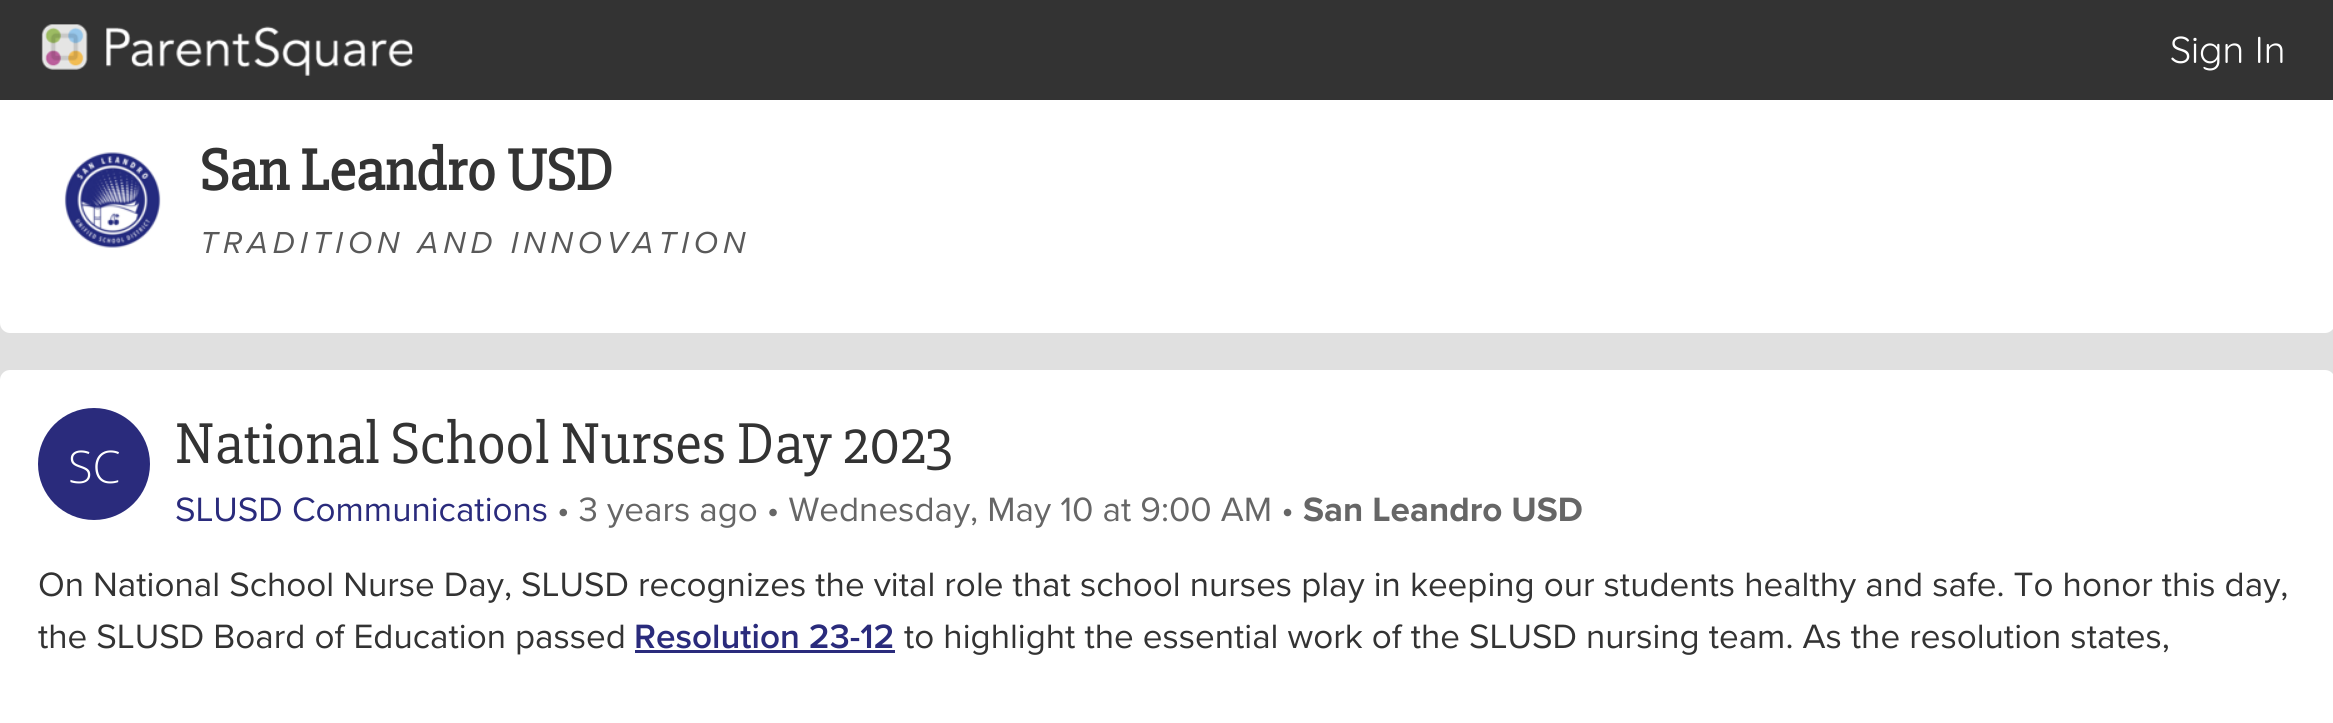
#include <cairo/cairo.h>
#include <math.h>
#include <stddef.h>


static void draw_spaced(cairo_t *cr, double x, double y, const char *s, double letter, double word) {
  cairo_move_to(cr, x, y);
  while (*s) {
    char ch[5] = {0};
    int n = 0;
    do ch[n++] = *s++; while ((*s & 0xC0) == 0x80);
    cairo_show_text(cr, ch);
    cairo_rel_move_to(cr, letter + word * (*ch == ' '), 0);
  }
}

static void rounded_rect(cairo_t *cr, double x, double y, double w, double h, double r) {
  cairo_new_sub_path(cr);
  cairo_arc(cr, x + w - r, y + h - r, r, 0, M_PI / 2);
  cairo_arc(cr, x + r, y + h - r, r, M_PI / 2, M_PI);
  cairo_arc(cr, x + r, y + r, r, M_PI, 1.5 * M_PI);
  cairo_arc(cr, x + w - r, y + r, r, 1.5 * M_PI, 2 * M_PI);
  cairo_close_path(cr);
}

static void draw_image(cairo_t *cr, const char *path, double x, double y, double w, double h) {
  cairo_surface_t *image = cairo_image_surface_create_from_png(path);
  cairo_save(cr);
  cairo_set_source_surface(cr, image, x, y);
  cairo_rectangle(cr, x, y, w, h);
  cairo_fill(cr);
  cairo_restore(cr);
  cairo_surface_destroy(image);
}

static void draw(cairo_t *cr) {
  cairo_set_source_rgb(cr, 224 / 255.0, 224 / 255.0, 224 / 255.0);
  cairo_paint(cr);
  cairo_set_source_rgb(cr, 51 / 255.0, 51 / 255.0, 51 / 255.0);
  cairo_rectangle(cr, 0, 0, 2333, 100);
  cairo_fill(cr);
  draw_image(cr, "images/1.png", 41, 24, 372, 52);
  cairo_set_source_rgb(cr, 1, 1, 1);
  cairo_new_path(cr);
  cairo_move_to(cr, 0, 100);
  cairo_line_to(cr, 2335, 100);
  cairo_line_to(cr, 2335, 323);
  cairo_curve_to(cr, 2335, 328.5, 2330.5, 333, 2325, 333);
  cairo_line_to(cr, 10, 333);
  cairo_curve_to(cr, 4.5, 333, 0, 328.5, 0, 323);
  cairo_close_path(cr);
  cairo_fill(cr);
  draw_image(cr, "images/2.png", 64, 152, 97, 96);
  rounded_rect(cr, 0, 370, 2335, 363, 10);
  cairo_fill(cr);
  cairo_set_source_rgb(cr, 42 / 255.0, 43 / 255.0, 124 / 255.0);
  cairo_arc(cr, 94, 464, 56, 0, 2 * M_PI);
  cairo_fill(cr);
  cairo_rectangle(cr, 635, 650, 260, 3);
  cairo_fill(cr);
  cairo_select_font_face(cr, "Quicksand Light", CAIRO_FONT_SLANT_NORMAL, CAIRO_FONT_WEIGHT_NORMAL);
  cairo_set_font_size(cr, 37.5);
  cairo_set_source_rgb(cr, 1, 1, 1);
  cairo_move_to(cr, 2170, 63);
  cairo_show_text(cr, "Sign In");
  cairo_select_font_face(cr, "Slabo 27px", CAIRO_FONT_SLANT_NORMAL, CAIRO_FONT_WEIGHT_BOLD);
  cairo_set_font_size(cr, 60);
  cairo_set_source_rgb(cr, 51 / 255.0, 51 / 255.0, 51 / 255.0);
  cairo_move_to(cr, 200, 190);
  cairo_show_text(cr, "San Leandro USD");
  cairo_select_font_face(cr, "Proxima Nova", CAIRO_FONT_SLANT_ITALIC, CAIRO_FONT_WEIGHT_NORMAL);
  cairo_set_font_size(cr, 31.5);
  cairo_set_source_rgb(cr, 89 / 255.0, 89 / 255.0, 89 / 255.0);
  draw_spaced(cr, 200, 253, "TRADITION AND INNOVATION", 5, 0);
  cairo_select_font_face(cr, "Open Sans Light", CAIRO_FONT_SLANT_NORMAL, CAIRO_FONT_WEIGHT_NORMAL);
  cairo_set_font_size(cr, 45);
  cairo_set_source_rgb(cr, 1, 1, 1);
  cairo_move_to(cr, 68, 483);
  cairo_show_text(cr, "SC");
  cairo_select_font_face(cr, "Slabo 27px", CAIRO_FONT_SLANT_NORMAL, CAIRO_FONT_WEIGHT_NORMAL);
  cairo_set_font_size(cr, 59.5);
  cairo_set_source_rgb(cr, 51 / 255.0, 51 / 255.0, 51 / 255.0);
  cairo_move_to(cr, 175, 463);
  cairo_show_text(cr, "National School Nurses Day 2023");
  cairo_select_font_face(cr, "Proxima Nova", CAIRO_FONT_SLANT_NORMAL, CAIRO_FONT_WEIGHT_NORMAL);
  cairo_set_font_size(cr, 35);
  cairo_set_source_rgb(cr, 42 / 255.0, 43 / 255.0, 124 / 255.0);
  cairo_move_to(cr, 175, 521);
  cairo_show_text(cr, "SLUSD Communications");
  cairo_set_source_rgb(cr, 102 / 255.0, 102 / 255.0, 102 / 255.0);
  cairo_move_to(cr, 557, 521);
  cairo_show_text(cr, "• 3 years ago • Wednesday, May 10 at 9:00 AM •");
  cairo_select_font_face(cr, "Proxima Nova", CAIRO_FONT_SLANT_NORMAL, CAIRO_FONT_WEIGHT_BOLD);
  cairo_move_to(cr, 1303, 521);
  cairo_show_text(cr, "San Leandro USD");
  cairo_select_font_face(cr, "Proxima Nova", CAIRO_FONT_SLANT_NORMAL, CAIRO_FONT_WEIGHT_NORMAL);
  cairo_set_source_rgb(cr, 51 / 255.0, 51 / 255.0, 51 / 255.0);
  cairo_move_to(cr, 38, 596);
  cairo_show_text(cr, "On National School Nurse Day, SLUSD recognizes the vital role that school nurses play in keeping our students healthy and safe. To honor this day,");
  cairo_move_to(cr, 38, 648);
  cairo_show_text(cr, "the SLUSD Board of Education passed");
  cairo_select_font_face(cr, "Proxima Nova SemiBold", CAIRO_FONT_SLANT_NORMAL, CAIRO_FONT_WEIGHT_NORMAL);
  cairo_set_source_rgb(cr, 42 / 255.0, 43 / 255.0, 124 / 255.0);
  cairo_move_to(cr, 634, 648);
  cairo_show_text(cr, "Resolution 23-12");
  cairo_select_font_face(cr, "Proxima Nova", CAIRO_FONT_SLANT_NORMAL, CAIRO_FONT_WEIGHT_NORMAL);
  cairo_set_source_rgb(cr, 51 / 255.0, 51 / 255.0, 51 / 255.0);
  cairo_move_to(cr, 904, 648);
  cairo_show_text(cr, "to highlight the essential work of the SLUSD nursing team. As the resolution states,");
}

int main(void) {
  cairo_surface_t *surface = cairo_image_surface_create(CAIRO_FORMAT_RGB24, 2333, 723);
  cairo_t *cr = cairo_create(surface);
  cairo_font_options_t *options = cairo_font_options_create();
  cairo_font_options_set_hint_metrics(options, CAIRO_HINT_METRICS_OFF);
  cairo_font_options_set_hint_style(options, CAIRO_HINT_STYLE_NONE);
  cairo_set_font_options(cr, options);
  cairo_set_miter_limit(cr, 4);
  draw(cr);
  cairo_surface_write_to_png(surface, "out.png");
  cairo_font_options_destroy(options);
  cairo_destroy(cr);
  cairo_surface_destroy(surface);
  return 0;
}
